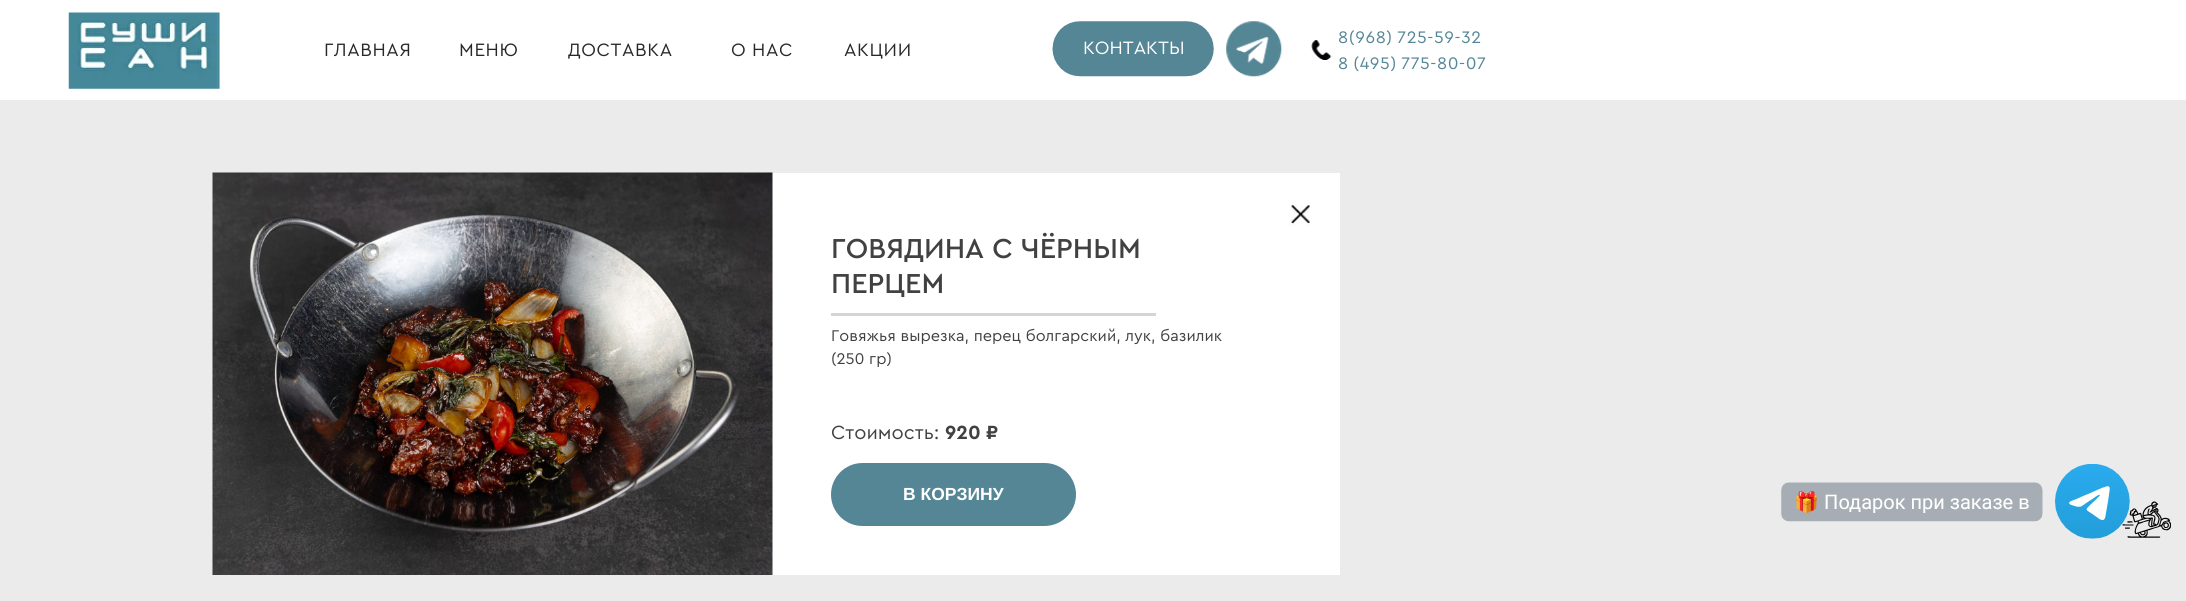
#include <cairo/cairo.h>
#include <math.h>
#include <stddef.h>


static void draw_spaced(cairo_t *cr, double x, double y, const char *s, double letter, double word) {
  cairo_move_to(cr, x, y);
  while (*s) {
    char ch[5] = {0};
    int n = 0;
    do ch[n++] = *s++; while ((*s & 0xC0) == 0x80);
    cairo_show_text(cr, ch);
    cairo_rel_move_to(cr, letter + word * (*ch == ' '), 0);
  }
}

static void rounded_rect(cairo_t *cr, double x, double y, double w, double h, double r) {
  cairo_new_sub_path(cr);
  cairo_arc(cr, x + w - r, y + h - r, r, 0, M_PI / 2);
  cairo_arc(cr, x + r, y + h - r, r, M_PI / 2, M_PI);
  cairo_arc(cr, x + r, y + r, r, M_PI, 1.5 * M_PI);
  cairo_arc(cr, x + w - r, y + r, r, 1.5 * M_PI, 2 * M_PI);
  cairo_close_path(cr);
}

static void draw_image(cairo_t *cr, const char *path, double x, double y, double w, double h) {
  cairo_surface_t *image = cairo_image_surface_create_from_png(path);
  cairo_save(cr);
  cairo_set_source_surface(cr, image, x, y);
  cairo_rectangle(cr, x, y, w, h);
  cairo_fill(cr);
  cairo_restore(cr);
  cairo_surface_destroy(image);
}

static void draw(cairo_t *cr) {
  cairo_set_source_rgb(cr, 1, 1, 1);
  cairo_paint(cr);
  draw_image(cr, "images/1.png", 68, 12, 152, 77);
  draw_image(cr, "images/2.png", 1052, 21, 162, 56);
  draw_image(cr, "images/3.png", 1226, 21, 56, 56);
  draw_image(cr, "images/4.png", 1311, 40, 21, 20);
  cairo_set_source_rgb(cr, 235 / 255.0, 235 / 255.0, 235 / 255.0);
  cairo_rectangle(cr, 0, 100, 2186, 501);
  cairo_fill(cr);
  cairo_set_source_rgb(cr, 1, 1, 1);
  cairo_rectangle(cr, 772, 173, 568, 402);
  cairo_fill(cr);
  draw_image(cr, "images/5.png", 212, 172, 561, 403);
  draw_image(cr, "images/6.png", 1289, 205, 21, 21);
  cairo_set_source_rgb(cr, 213 / 255.0, 213 / 255.0, 213 / 255.0);
  cairo_rectangle(cr, 831, 313, 325, 3);
  cairo_fill(cr);
  cairo_set_source_rgb(cr, 85 / 255.0, 134 / 255.0, 150 / 255.0);
  rounded_rect(cr, 831, 463, 245, 63, 31.5);
  cairo_fill(cr);
  draw_image(cr, "images/7.png", 1781, 464, 390, 75);
  cairo_select_font_face(cr, "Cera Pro", CAIRO_FONT_SLANT_NORMAL, CAIRO_FONT_WEIGHT_NORMAL);
  cairo_set_font_size(cr, 17.5);
  draw_spaced(cr, 1338, 43, "8(968) 725-59-32", 0.6, -1);
  draw_spaced(cr, 1338, 69, "8 (495) 775-80-07", 0.6, -1);
  cairo_set_font_size(cr, 18.75);
  cairo_set_source_rgb(cr, 40 / 255.0, 40 / 255.0, 40 / 255.0);
  draw_spaced(cr, 324, 56, "ГЛАВНАЯ", 0.6, 0);
  draw_spaced(cr, 459, 56, "МЕНЮ", 0.6, 0);
  draw_spaced(cr, 568, 56, "ДОСТАВКА", 0.6, 0);
  draw_spaced(cr, 731, 56, "О НАС", 0.6, 0);
  draw_spaced(cr, 844, 56, "АКЦИИ", 0.6, 0);
  cairo_set_source_rgb(cr, 1, 1, 1);
  cairo_move_to(cr, 1083, 54);
  cairo_show_text(cr, "КОНТАКТЫ");
  cairo_select_font_face(cr, "Cera Pro Medium", CAIRO_FONT_SLANT_NORMAL, CAIRO_FONT_WEIGHT_NORMAL);
  cairo_set_font_size(cr, 28.75);
  cairo_set_source_rgb(cr, 65 / 255.0, 65 / 255.0, 65 / 255.0);
  cairo_move_to(cr, 831, 258);
  cairo_show_text(cr, "ГОВЯДИНА С ЧЁРНЫМ");
  cairo_move_to(cr, 831, 293);
  cairo_show_text(cr, "ПЕРЦЕМ");
  cairo_select_font_face(cr, "Cera Pro", CAIRO_FONT_SLANT_NORMAL, CAIRO_FONT_WEIGHT_NORMAL);
  cairo_set_font_size(cr, 16.25);
  cairo_move_to(cr, 831, 341);
  cairo_show_text(cr, "Говяжья вырезка, перец болгарский, лук, базилик");
  cairo_move_to(cr, 831, 364);
  cairo_show_text(cr, "(250 гр)");
  cairo_set_font_size(cr, 20);
  cairo_move_to(cr, 831, 439);
  cairo_show_text(cr, "Стоимость:");
  cairo_select_font_face(cr, "Cera Pro", CAIRO_FONT_SLANT_NORMAL, CAIRO_FONT_WEIGHT_BOLD);
  cairo_move_to(cr, 945, 439);
  cairo_show_text(cr, "920 ₽");
  cairo_select_font_face(cr, "Liberation Sans", CAIRO_FONT_SLANT_NORMAL, CAIRO_FONT_WEIGHT_BOLD);
  cairo_set_font_size(cr, 17.5);
  cairo_set_source_rgb(cr, 1, 1, 1);
  cairo_move_to(cr, 903, 500);
  cairo_show_text(cr, "В КОРЗИНУ");
}

int main(void) {
  cairo_surface_t *surface = cairo_image_surface_create(CAIRO_FORMAT_RGB24, 2186, 601);
  cairo_t *cr = cairo_create(surface);
  cairo_font_options_t *options = cairo_font_options_create();
  cairo_font_options_set_hint_metrics(options, CAIRO_HINT_METRICS_OFF);
  cairo_font_options_set_hint_style(options, CAIRO_HINT_STYLE_NONE);
  cairo_set_font_options(cr, options);
  cairo_set_miter_limit(cr, 4);
  draw(cr);
  cairo_surface_write_to_png(surface, "out.png");
  cairo_font_options_destroy(options);
  cairo_destroy(cr);
  cairo_surface_destroy(surface);
  return 0;
}
